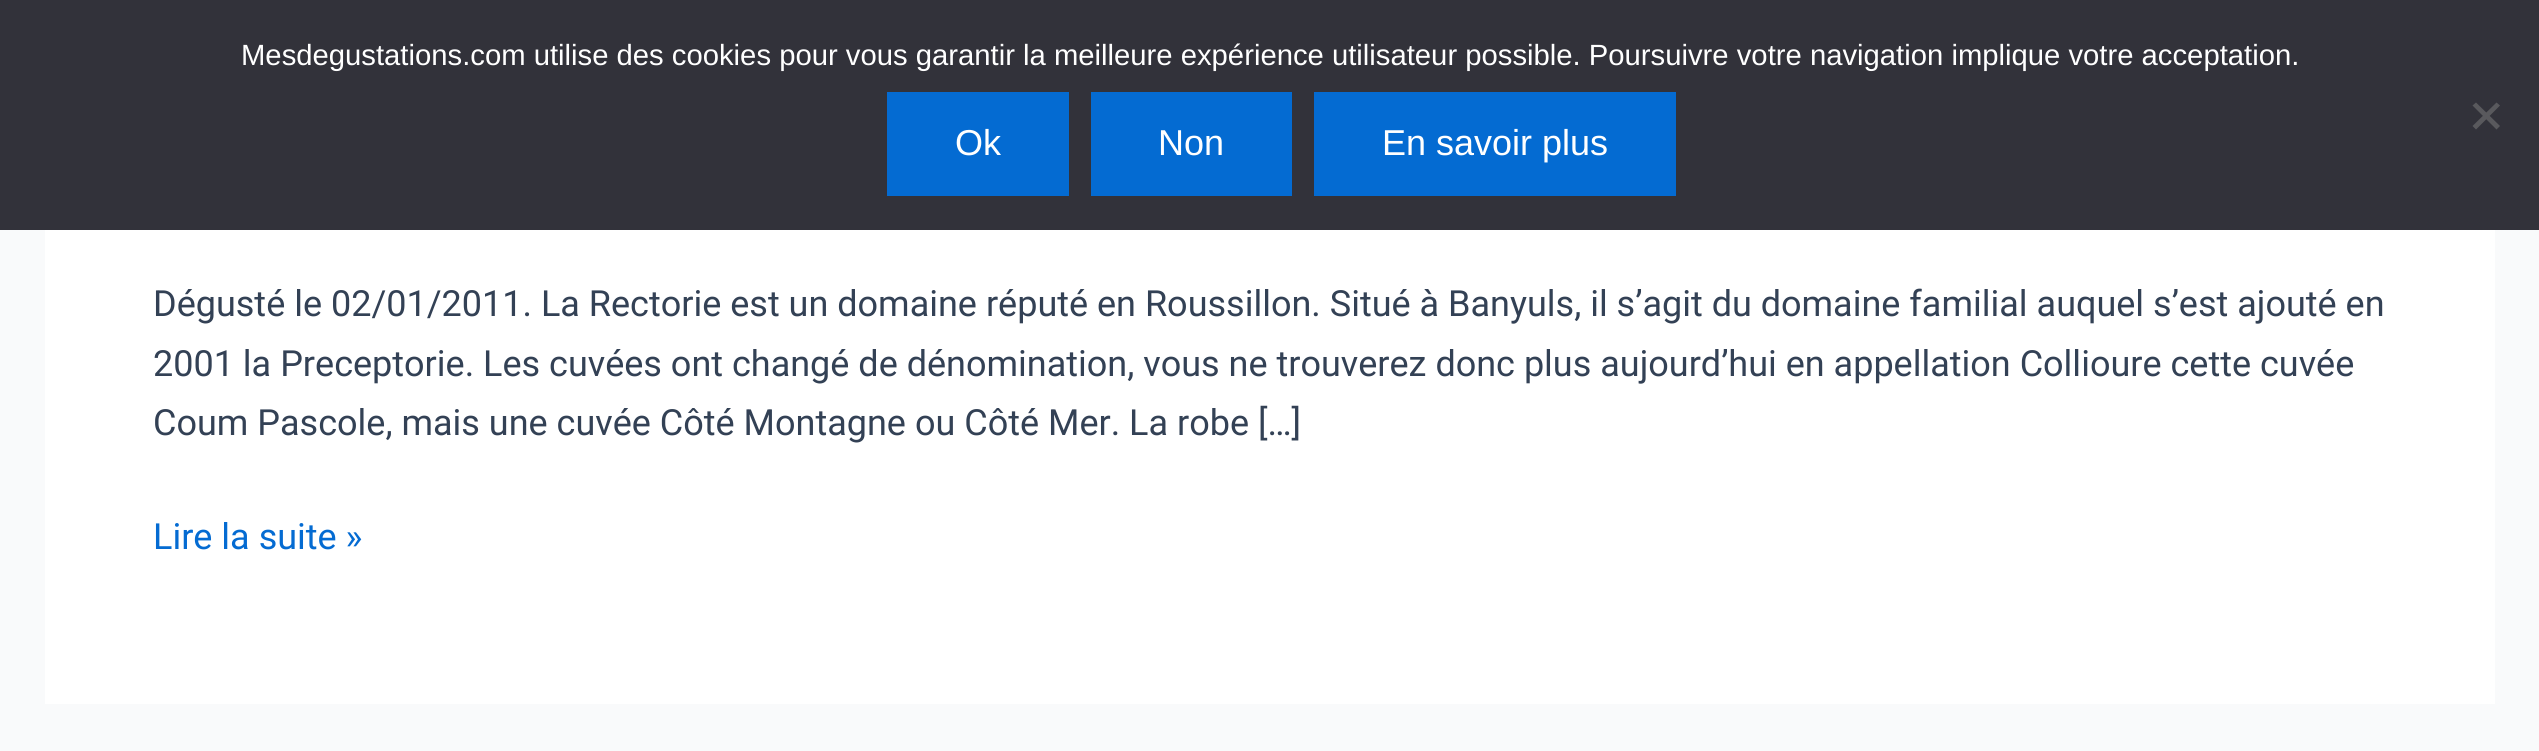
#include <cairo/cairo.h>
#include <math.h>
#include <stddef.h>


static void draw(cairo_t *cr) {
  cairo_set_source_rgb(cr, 249 / 255.0, 250 / 255.0, 251 / 255.0);
  cairo_paint(cr);
  cairo_set_source_rgb(cr, 50 / 255.0, 50 / 255.0, 58 / 255.0);
  cairo_rectangle(cr, 0, 0, 2539, 230);
  cairo_fill(cr);
  cairo_set_source_rgb(cr, 89 / 255.0, 89 / 255.0, 93 / 255.0);
  cairo_new_path(cr);
  cairo_move_to(cr, 2496.5, 102.5);
  cairo_line_to(cr, 2500, 105.5);
  cairo_line_to(cr, 2476, 129.5);
  cairo_line_to(cr, 2472.5, 126);
  cairo_close_path(cr);
  cairo_fill(cr);
  cairo_new_path(cr);
  cairo_move_to(cr, 2472.5, 105.5);
  cairo_line_to(cr, 2476, 102.5);
  cairo_line_to(cr, 2500, 126);
  cairo_line_to(cr, 2496.5, 129.5);
  cairo_close_path(cr);
  cairo_fill(cr);
  cairo_set_source_rgb(cr, 4 / 255.0, 107 / 255.0, 210 / 255.0);
  cairo_rectangle(cr, 887, 92, 182, 104);
  cairo_fill(cr);
  cairo_rectangle(cr, 1091, 92, 201, 104);
  cairo_fill(cr);
  cairo_rectangle(cr, 1314, 92, 362, 104);
  cairo_fill(cr);
  cairo_set_source_rgb(cr, 1, 1, 1);
  cairo_rectangle(cr, 45, 230, 2450, 474);
  cairo_fill(cr);
  cairo_select_font_face(cr, "Liberation Sans", CAIRO_FONT_SLANT_NORMAL, CAIRO_FONT_WEIGHT_NORMAL);
  cairo_set_font_size(cr, 29.25);
  cairo_move_to(cr, 241, 65);
  cairo_show_text(cr, "Mesdegustations.com utilise des cookies pour vous garantir la meilleure expérience utilisateur possible. Poursuivre votre navigation implique votre acceptation.");
  cairo_set_font_size(cr, 36);
  cairo_move_to(cr, 955, 155);
  cairo_show_text(cr, "Ok");
  cairo_move_to(cr, 1158, 155);
  cairo_show_text(cr, "Non");
  cairo_move_to(cr, 1382, 155);
  cairo_show_text(cr, "En savoir plus");
  cairo_select_font_face(cr, "Roboto", CAIRO_FONT_SLANT_NORMAL, CAIRO_FONT_WEIGHT_NORMAL);
  cairo_set_source_rgb(cr, 51 / 255.0, 65 / 255.0, 85 / 255.0);
  cairo_move_to(cr, 153, 316);
  cairo_show_text(cr, "Dégusté le 02/01/2011. La Rectorie est un domaine réputé en Roussillon. Situé à Banyuls, il s’agit du domaine familial auquel s’est ajouté en");
  cairo_move_to(cr, 153, 376);
  cairo_show_text(cr, "2001 la Preceptorie. Les cuvées ont changé de dénomination, vous ne trouverez donc plus aujourd’hui en appellation Collioure cette cuvée");
  cairo_move_to(cr, 153, 435);
  cairo_show_text(cr, "Coum Pascole, mais une cuvée Côté Montagne ou Côté Mer. La robe […]");
  cairo_set_source_rgb(cr, 4 / 255.0, 107 / 255.0, 210 / 255.0);
  cairo_move_to(cr, 153, 549);
  cairo_show_text(cr, "Lire la suite »");
}

int main(void) {
  cairo_surface_t *surface = cairo_image_surface_create(CAIRO_FORMAT_RGB24, 2539, 751);
  cairo_t *cr = cairo_create(surface);
  cairo_font_options_t *options = cairo_font_options_create();
  cairo_font_options_set_hint_metrics(options, CAIRO_HINT_METRICS_OFF);
  cairo_font_options_set_hint_style(options, CAIRO_HINT_STYLE_NONE);
  cairo_set_font_options(cr, options);
  cairo_set_miter_limit(cr, 4);
  draw(cr);
  cairo_surface_write_to_png(surface, "out.png");
  cairo_font_options_destroy(options);
  cairo_destroy(cr);
  cairo_surface_destroy(surface);
  return 0;
}
